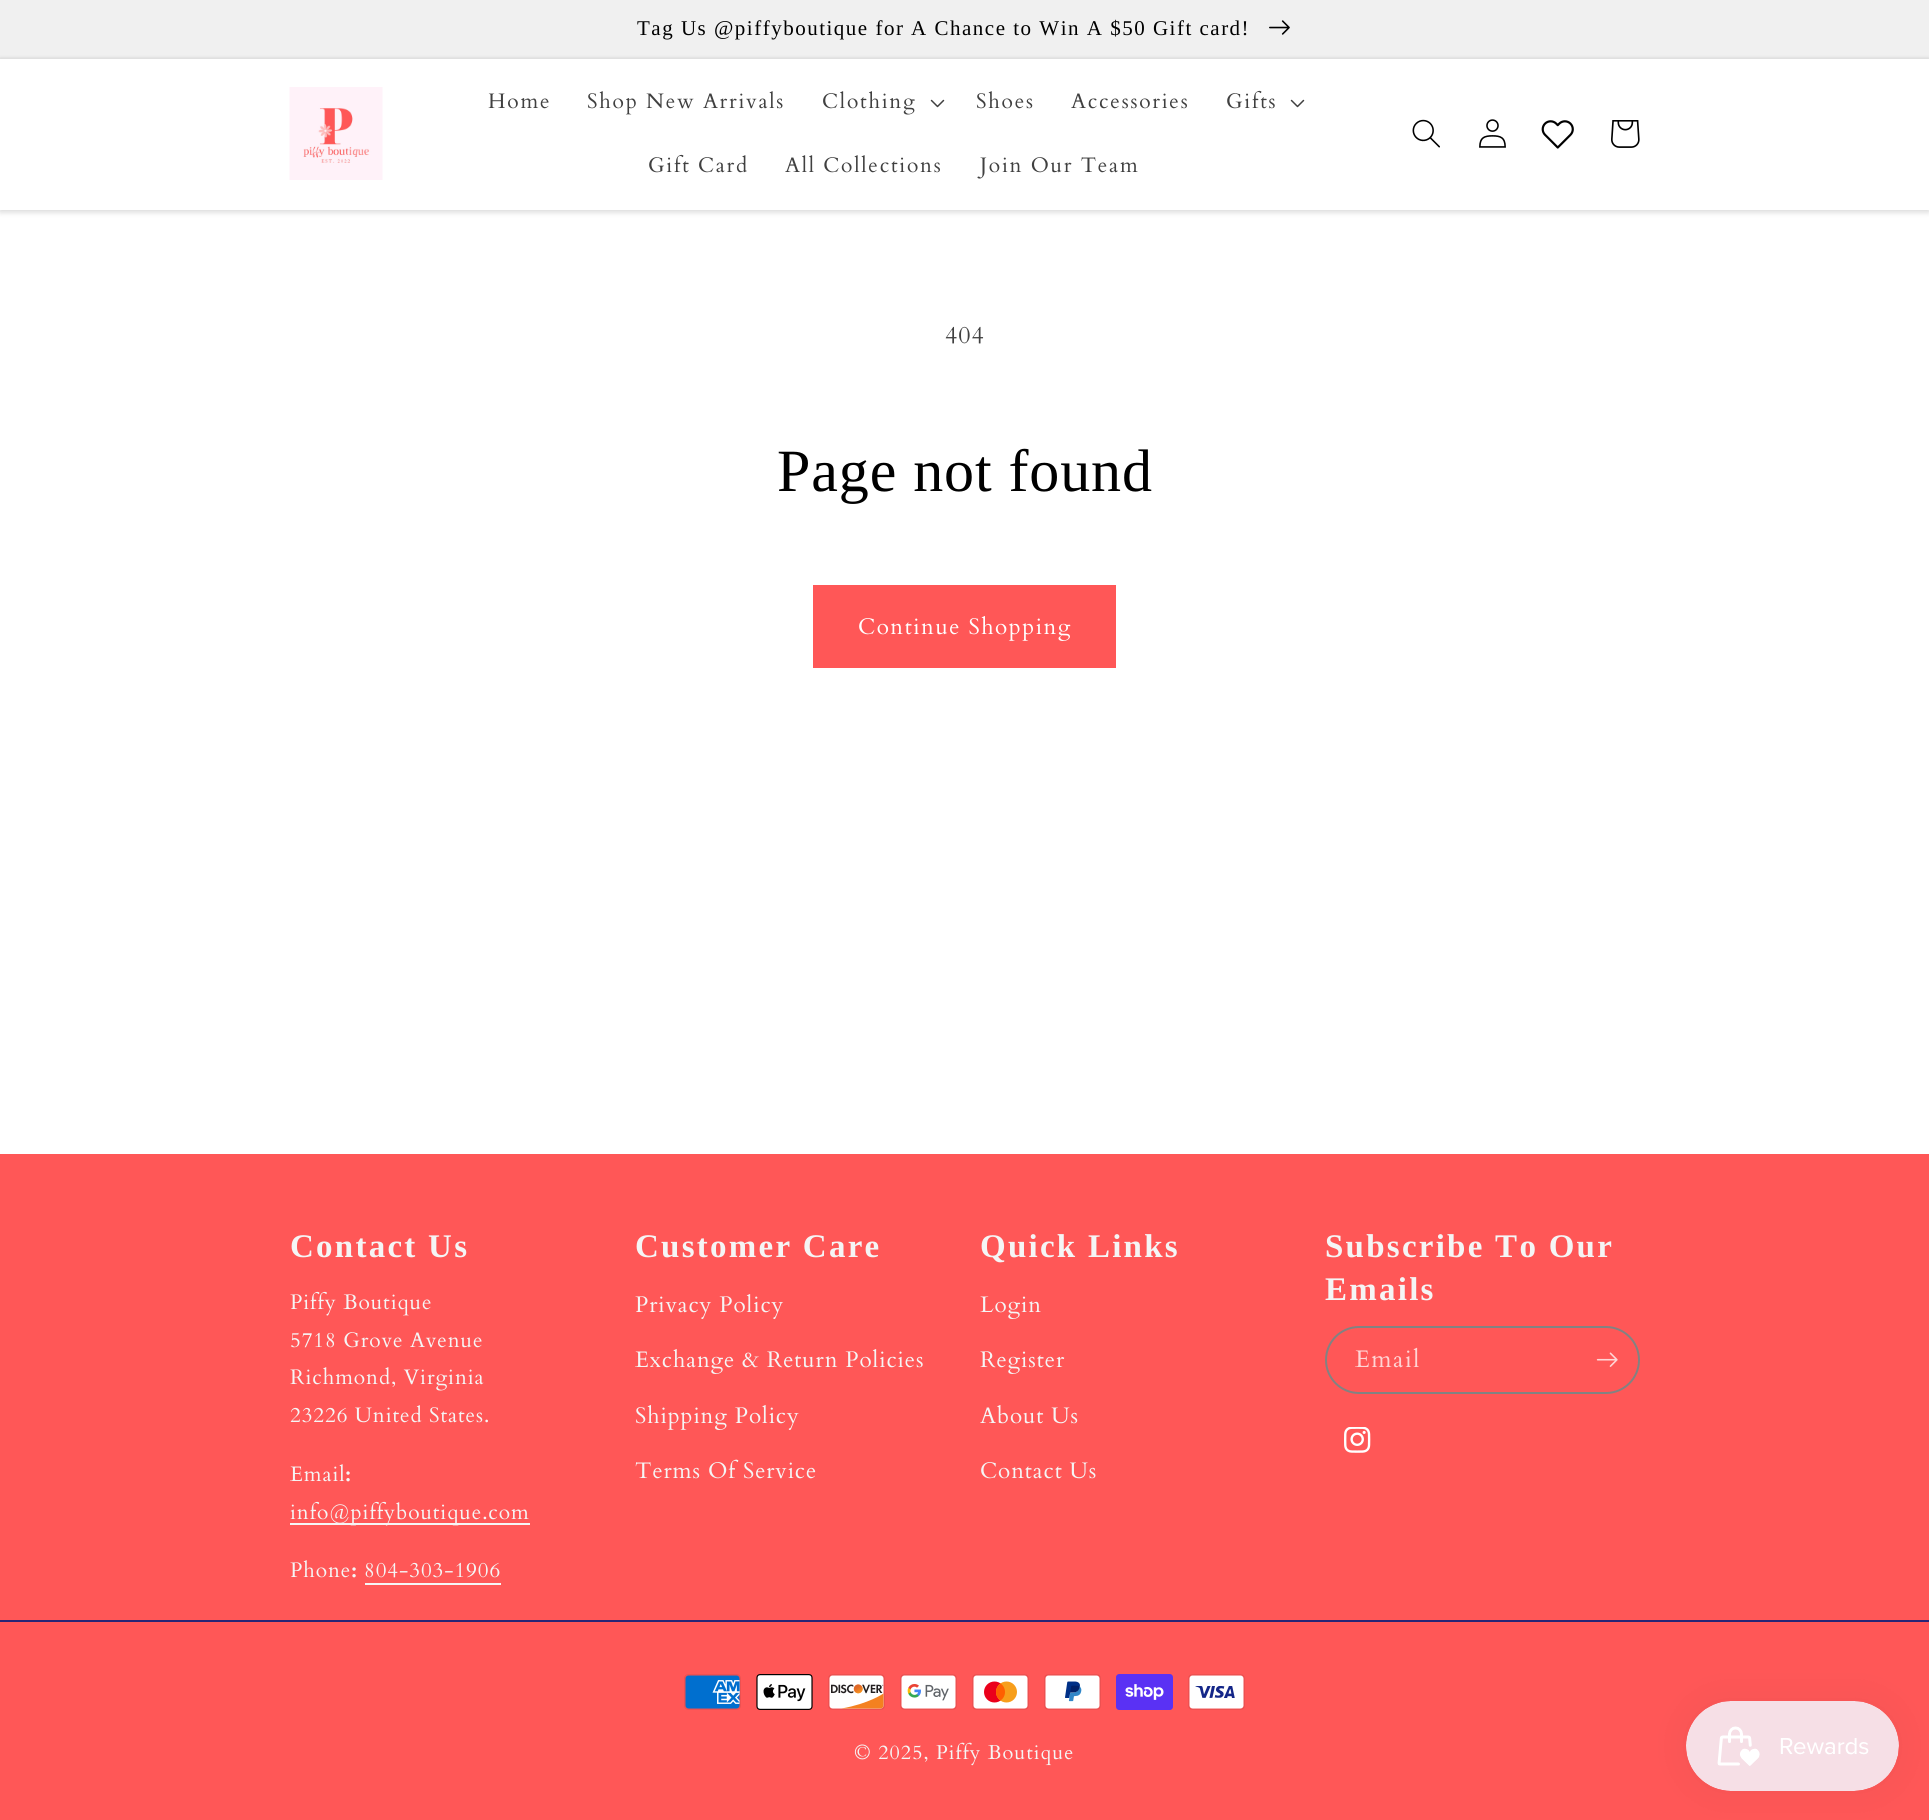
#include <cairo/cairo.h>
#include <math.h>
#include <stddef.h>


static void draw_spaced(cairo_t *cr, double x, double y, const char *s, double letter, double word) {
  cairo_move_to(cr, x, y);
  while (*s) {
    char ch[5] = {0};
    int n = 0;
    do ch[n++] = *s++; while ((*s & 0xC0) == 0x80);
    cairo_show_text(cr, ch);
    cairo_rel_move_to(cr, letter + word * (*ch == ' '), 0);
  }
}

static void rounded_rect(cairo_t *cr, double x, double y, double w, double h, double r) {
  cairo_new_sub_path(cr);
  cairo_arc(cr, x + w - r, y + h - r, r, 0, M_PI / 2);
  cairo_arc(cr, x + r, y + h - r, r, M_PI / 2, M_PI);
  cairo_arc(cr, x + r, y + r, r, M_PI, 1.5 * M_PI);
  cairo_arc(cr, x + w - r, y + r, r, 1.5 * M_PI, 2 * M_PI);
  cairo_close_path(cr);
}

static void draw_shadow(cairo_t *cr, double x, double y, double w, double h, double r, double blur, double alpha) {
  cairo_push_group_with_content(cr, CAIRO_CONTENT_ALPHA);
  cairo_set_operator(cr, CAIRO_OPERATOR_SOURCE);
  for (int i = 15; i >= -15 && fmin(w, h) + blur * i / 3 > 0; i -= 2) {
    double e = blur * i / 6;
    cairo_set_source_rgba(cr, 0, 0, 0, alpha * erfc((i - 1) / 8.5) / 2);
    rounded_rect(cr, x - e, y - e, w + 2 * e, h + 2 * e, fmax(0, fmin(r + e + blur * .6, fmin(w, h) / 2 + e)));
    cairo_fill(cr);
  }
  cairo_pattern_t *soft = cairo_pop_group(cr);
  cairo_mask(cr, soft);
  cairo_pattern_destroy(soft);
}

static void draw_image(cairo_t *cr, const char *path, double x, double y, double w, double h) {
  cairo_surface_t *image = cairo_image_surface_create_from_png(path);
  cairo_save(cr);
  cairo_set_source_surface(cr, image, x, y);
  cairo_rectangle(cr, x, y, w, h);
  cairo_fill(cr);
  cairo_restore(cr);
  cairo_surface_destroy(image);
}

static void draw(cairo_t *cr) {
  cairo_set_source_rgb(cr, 1, 1, 1);
  cairo_paint(cr);
  cairo_set_source_rgb(cr, 235 / 255.0, 235 / 255.0, 235 / 255.0);
  cairo_rectangle(cr, 0, 57, 1929, 2);
  cairo_fill(cr);
  cairo_set_source_rgb(cr, 240 / 255.0, 240 / 255.0, 240 / 255.0);
  cairo_rectangle(cr, 0, 0, 1929, 57);
  cairo_fill(cr);
  draw_image(cr, "images/1.png", 1269, 20, 21, 15);
  cairo_save(cr);
  cairo_set_fill_rule(cr, CAIRO_FILL_RULE_EVEN_ODD);
  cairo_new_path(cr);
  cairo_move_to(cr, 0, 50);
  cairo_line_to(cr, 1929, 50);
  cairo_line_to(cr, 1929, 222);
  cairo_line_to(cr, 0, 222);
  cairo_close_path(cr);
  cairo_move_to(cr, 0, 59);
  cairo_line_to(cr, 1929, 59);
  cairo_line_to(cr, 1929, 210);
  cairo_line_to(cr, 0, 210);
  cairo_close_path(cr);
  cairo_clip(cr);
  cairo_set_source_rgb(cr, 0, 0, 0);
  draw_shadow(cr, 0, 60, 1929, 152, 0, 3, 0.16);
  cairo_restore(cr);
  draw_image(cr, "images/2.png", 289, 87, 94, 93);
  draw_image(cr, "images/3.png", 930, 99, 15, 9);
  draw_image(cr, "images/3.png", 1290, 99, 15, 9);
  draw_image(cr, "images/4.png", 1412, 119, 28, 29);
  draw_image(cr, "images/5.png", 1479, 119, 27, 29);
  draw_image(cr, "images/6.png", 1541, 120, 33, 29);
  draw_image(cr, "images/7.png", 1611, 120, 29, 28);
  cairo_set_source_rgb(cr, 1, 87 / 255.0, 87 / 255.0);
  cairo_rectangle(cr, 813, 585, 303, 83);
  cairo_fill(cr);
  cairo_rectangle(cr, 0, 1154, 1929, 666);
  cairo_fill(cr);
  cairo_set_source_rgb(cr, 245 / 255.0, 245 / 255.0, 245 / 255.0);
  cairo_rectangle(cr, 290, 1523, 240, 2);
  cairo_fill(cr);
  cairo_rectangle(cr, 365, 1583, 136, 2);
  cairo_fill(cr);
  rounded_rect(cr, 1326, 1327, 313, 66, 33);
  cairo_set_source_rgb(cr, 130 / 255.0, 130 / 255.0, 130 / 255.0);
  cairo_stroke(cr);
  draw_image(cr, "images/8.png", 1596, 1352, 22, 15);
  draw_image(cr, "images/9.png", 1344, 1427, 27, 26);
  cairo_set_source_rgb(cr, 39 / 255.0, 37 / 255.0, 118 / 255.0);
  cairo_rectangle(cr, 0, 1620, 1929, 2);
  cairo_fill(cr);
  draw_image(cr, "images/10.png", 684, 1674, 57, 36);
  draw_image(cr, "images/11.png", 756, 1674, 57, 36);
  draw_image(cr, "images/12.png", 828, 1674, 57, 36);
  draw_image(cr, "images/13.png", 900, 1674, 57, 36);
  draw_image(cr, "images/14.png", 972, 1674, 57, 36);
  draw_image(cr, "images/15.png", 1044, 1674, 57, 36);
  draw_image(cr, "images/16.png", 1116, 1674, 57, 36);
  draw_image(cr, "images/17.png", 1188, 1674, 57, 36);
  cairo_set_source_rgb(cr, 0, 0, 0);
  draw_shadow(cr, 1686, 1701, 213, 90, 45, 19, 0.05);
  draw_image(cr, "images/18.png", 1686, 1701, 213, 90);
  cairo_select_font_face(cr, "Liberation Serif", CAIRO_FONT_SLANT_NORMAL, CAIRO_FONT_WEIGHT_NORMAL);
  cairo_set_font_size(cr, 21);
  cairo_set_source_rgb(cr, 0, 0, 0);
  draw_spaced(cr, 637, 35, "Tag Us @piffyboutique for A Chance to Win A $50 Gift card!", 1.5, 0);
  cairo_select_font_face(cr, "Cardo", CAIRO_FONT_SLANT_NORMAL, CAIRO_FONT_WEIGHT_NORMAL);
  cairo_set_source_rgb(cr, 64 / 255.0, 64 / 255.0, 64 / 255.0);
  draw_spaced(cr, 488, 108, "Home", 1.75, 0);
  draw_spaced(cr, 587, 108, "Shop New Arrivals", 1.75, 0);
  draw_spaced(cr, 822, 108, "Clothing", 1.75, 0);
  draw_spaced(cr, 976, 108, "Shoes", 1.75, 0);
  draw_spaced(cr, 1071, 108, "Accessories", 1.75, 0);
  draw_spaced(cr, 1226, 108, "Gifts", 1.75, 0);
  draw_spaced(cr, 648, 172, "Gift Card", 1.75, 0);
  draw_spaced(cr, 785, 172, "All Collections", 1.75, 0);
  draw_spaced(cr, 980, 172, "Join Our Team", 1.75, 0);
  cairo_set_font_size(cr, 24);
  draw_spaced(cr, 945, 343, "404", 0.9, 0);
  cairo_select_font_face(cr, "Liberation Serif", CAIRO_FONT_SLANT_NORMAL, CAIRO_FONT_WEIGHT_NORMAL);
  cairo_set_font_size(cr, 60);
  cairo_set_source_rgb(cr, 0, 0, 0);
  draw_spaced(cr, 777, 491, "Page not found", 0.9, 0);
  cairo_select_font_face(cr, "Cardo", CAIRO_FONT_SLANT_NORMAL, CAIRO_FONT_WEIGHT_NORMAL);
  cairo_set_font_size(cr, 22.5);
  cairo_set_source_rgb(cr, 1, 1, 1);
  draw_spaced(cr, 858, 634, "Continue Shopping", 1.5, 0);
  cairo_select_font_face(cr, "Liberation Serif", CAIRO_FONT_SLANT_NORMAL, CAIRO_FONT_WEIGHT_BOLD);
  cairo_set_font_size(cr, 33);
  cairo_set_source_rgb(cr, 245 / 255.0, 245 / 255.0, 245 / 255.0);
  draw_spaced(cr, 290, 1257, "Contact Us", 2.25, 0);
  cairo_select_font_face(cr, "Cardo", CAIRO_FONT_SLANT_NORMAL, CAIRO_FONT_WEIGHT_NORMAL);
  cairo_set_font_size(cr, 21);
  draw_spaced(cr, 290, 1309, "Piffy Boutique", 0.9, 0);
  draw_spaced(cr, 290, 1347, "5718 Grove Avenue", 0.9, 0);
  draw_spaced(cr, 290, 1384, "Richmond, Virginia", 0.9, 0);
  draw_spaced(cr, 290, 1422, "23226 United States.", 0.9, 0);
  draw_spaced(cr, 290, 1481, "Email", 0.9, 0);
  cairo_select_font_face(cr, "Cardo", CAIRO_FONT_SLANT_NORMAL, CAIRO_FONT_WEIGHT_BOLD);
  draw_spaced(cr, 345, 1481, ":", 0.9, 0);
  cairo_select_font_face(cr, "Cardo", CAIRO_FONT_SLANT_NORMAL, CAIRO_FONT_WEIGHT_NORMAL);
  draw_spaced(cr, 290, 1519, "info@piffyboutique.com", 0.9, 0);
  draw_spaced(cr, 290, 1577, "Phone", 0.9, 0);
  cairo_select_font_face(cr, "Cardo", CAIRO_FONT_SLANT_NORMAL, CAIRO_FONT_WEIGHT_BOLD);
  draw_spaced(cr, 351, 1577, ":", 0.9, 0);
  cairo_select_font_face(cr, "Cardo", CAIRO_FONT_SLANT_NORMAL, CAIRO_FONT_WEIGHT_NORMAL);
  draw_spaced(cr, 364, 1577, "804-303-1906", 0.9, 0);
  cairo_select_font_face(cr, "Liberation Serif", CAIRO_FONT_SLANT_NORMAL, CAIRO_FONT_WEIGHT_BOLD);
  cairo_set_font_size(cr, 33);
  draw_spaced(cr, 635, 1257, "Customer Care", 2.25, 0);
  cairo_select_font_face(cr, "Cardo", CAIRO_FONT_SLANT_NORMAL, CAIRO_FONT_WEIGHT_NORMAL);
  cairo_set_font_size(cr, 22.5);
  draw_spaced(cr, 635, 1312, "Privacy Policy", 0.9, 0);
  draw_spaced(cr, 635, 1367, "Exchange & Return Policies", 0.9, 0);
  draw_spaced(cr, 635, 1423, "Shipping Policy", 0.9, 0);
  draw_spaced(cr, 635, 1478, "Terms Of Service", 0.9, 0);
  cairo_select_font_face(cr, "Liberation Serif", CAIRO_FONT_SLANT_NORMAL, CAIRO_FONT_WEIGHT_BOLD);
  cairo_set_font_size(cr, 33);
  draw_spaced(cr, 980, 1257, "Quick Links", 2.25, 0);
  cairo_select_font_face(cr, "Cardo", CAIRO_FONT_SLANT_NORMAL, CAIRO_FONT_WEIGHT_NORMAL);
  cairo_set_font_size(cr, 22.5);
  draw_spaced(cr, 980, 1312, "Login", 0.9, 0);
  draw_spaced(cr, 980, 1367, "Register", 0.9, 0);
  draw_spaced(cr, 980, 1423, "About Us", 0.9, 0);
  draw_spaced(cr, 980, 1478, "Contact Us", 0.9, 0);
  cairo_select_font_face(cr, "Liberation Serif", CAIRO_FONT_SLANT_NORMAL, CAIRO_FONT_WEIGHT_BOLD);
  cairo_set_font_size(cr, 33);
  draw_spaced(cr, 1325, 1257, "Subscribe To Our", 2.25, 0);
  draw_spaced(cr, 1325, 1300, "Emails", 2.25, 0);
  cairo_select_font_face(cr, "Cardo", CAIRO_FONT_SLANT_NORMAL, CAIRO_FONT_WEIGHT_NORMAL);
  cairo_set_font_size(cr, 24);
  cairo_set_source_rgb(cr, 1, 213 / 255.0, 213 / 255.0);
  draw_spaced(cr, 1355, 1367, "Email", 1.5, 0);
  cairo_set_font_size(cr, 20);
  cairo_set_source_rgb(cr, 245 / 255.0, 245 / 255.0, 245 / 255.0);
  draw_spaced(cr, 854, 1759, "© 2025, Piffy Boutique", 1.05, 0);
}

int main(void) {
  cairo_surface_t *surface = cairo_image_surface_create(CAIRO_FORMAT_RGB24, 1929, 1820);
  cairo_t *cr = cairo_create(surface);
  cairo_font_options_t *options = cairo_font_options_create();
  cairo_font_options_set_hint_metrics(options, CAIRO_HINT_METRICS_OFF);
  cairo_font_options_set_hint_style(options, CAIRO_HINT_STYLE_NONE);
  cairo_set_font_options(cr, options);
  cairo_set_miter_limit(cr, 4);
  draw(cr);
  cairo_surface_write_to_png(surface, "out.png");
  cairo_font_options_destroy(options);
  cairo_destroy(cr);
  cairo_surface_destroy(surface);
  return 0;
}
